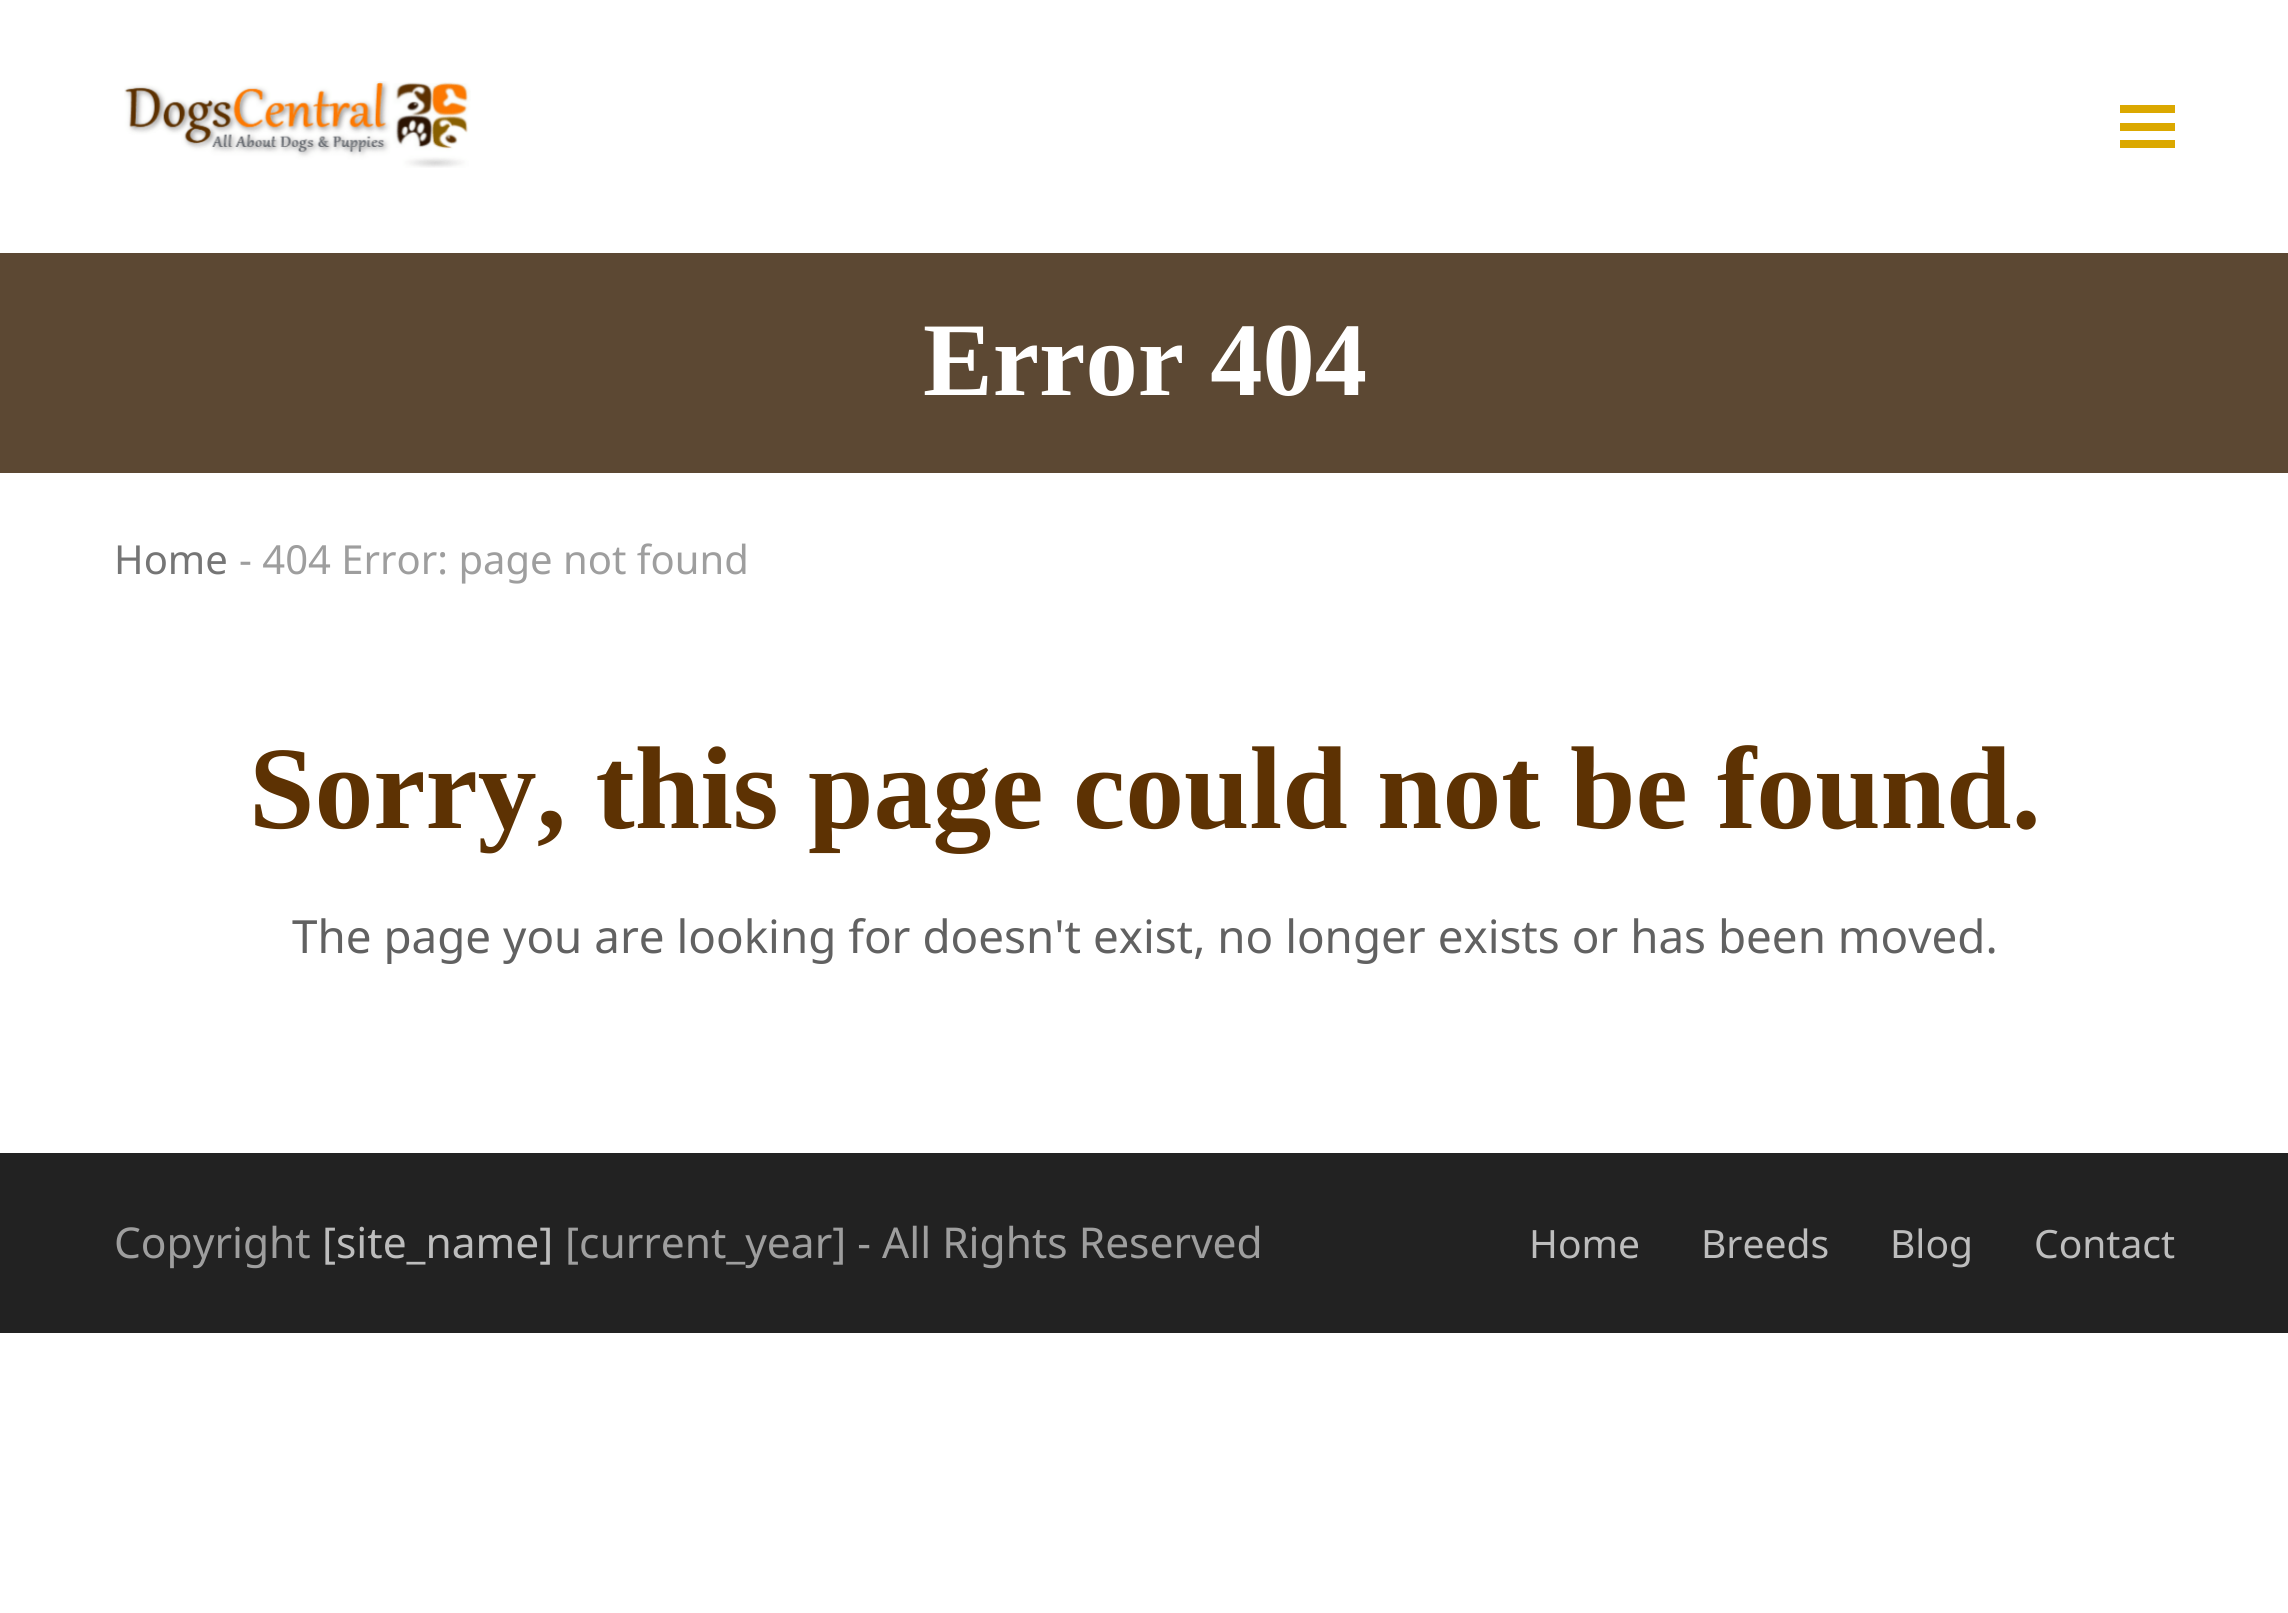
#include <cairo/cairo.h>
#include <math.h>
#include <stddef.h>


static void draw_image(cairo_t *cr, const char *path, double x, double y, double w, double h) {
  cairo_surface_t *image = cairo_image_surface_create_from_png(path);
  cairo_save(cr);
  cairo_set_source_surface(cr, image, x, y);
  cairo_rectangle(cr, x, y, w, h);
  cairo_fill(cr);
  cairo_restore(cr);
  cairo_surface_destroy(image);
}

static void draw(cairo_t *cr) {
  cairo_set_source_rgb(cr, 1, 1, 1);
  cairo_paint(cr);
  draw_image(cr, "images/1.png", 124, 81, 347, 87);
  cairo_set_source_rgb(cr, 219 / 255.0, 168 / 255.0, 0);
  cairo_rectangle(cr, 2120, 123, 55, 8);
  cairo_fill(cr);
  cairo_rectangle(cr, 2120, 105, 55, 8);
  cairo_fill(cr);
  cairo_rectangle(cr, 2120, 140, 55, 8);
  cairo_fill(cr);
  cairo_set_source_rgb(cr, 92 / 255.0, 72 / 255.0, 51 / 255.0);
  cairo_rectangle(cr, 0, 253, 2288, 220);
  cairo_fill(cr);
  cairo_set_source_rgb(cr, 34 / 255.0, 34 / 255.0, 34 / 255.0);
  cairo_rectangle(cr, 0, 1153, 2288, 180);
  cairo_fill(cr);
  cairo_select_font_face(cr, "Liberation Serif", CAIRO_FONT_SLANT_NORMAL, CAIRO_FONT_WEIGHT_BOLD);
  cairo_set_font_size(cr, 104.5);
  cairo_set_source_rgb(cr, 1, 1, 1);
  cairo_move_to(cr, 923, 395);
  cairo_show_text(cr, "Error 404");
  cairo_select_font_face(cr, "Noto Sans", CAIRO_FONT_SLANT_NORMAL, CAIRO_FONT_WEIGHT_NORMAL);
  cairo_set_font_size(cr, 40);
  cairo_set_source_rgb(cr, 117 / 255.0, 117 / 255.0, 117 / 255.0);
  cairo_move_to(cr, 114, 574);
  cairo_show_text(cr, "Home");
  cairo_set_source_rgb(cr, 158 / 255.0, 158 / 255.0, 158 / 255.0);
  cairo_move_to(cr, 239, 574);
  cairo_show_text(cr, "- 404 Error: page not found");
  cairo_select_font_face(cr, "Liberation Serif", CAIRO_FONT_SLANT_NORMAL, CAIRO_FONT_WEIGHT_BOLD);
  cairo_set_font_size(cr, 117.7);
  cairo_set_source_rgb(cr, 93 / 255.0, 50 / 255.0, 3 / 255.0);
  cairo_move_to(cr, 249, 828);
  cairo_show_text(cr, "Sorry, this page could not be found.");
  cairo_select_font_face(cr, "Noto Sans", CAIRO_FONT_SLANT_NORMAL, CAIRO_FONT_WEIGHT_NORMAL);
  cairo_set_font_size(cr, 45.75);
  cairo_set_source_rgb(cr, 97 / 255.0, 97 / 255.0, 97 / 255.0);
  cairo_move_to(cr, 292, 953);
  cairo_show_text(cr, "The page you are looking for doesn't exist, no longer exists or has been moved.");
  cairo_set_font_size(cr, 42.5);
  cairo_set_source_rgb(cr, 158 / 255.0, 158 / 255.0, 158 / 255.0);
  cairo_move_to(cr, 114, 1258);
  cairo_show_text(cr, "Copyright");
  cairo_set_source_rgb(cr, 189 / 255.0, 189 / 255.0, 189 / 255.0);
  cairo_move_to(cr, 322, 1258);
  cairo_show_text(cr, "[site_name]");
  cairo_set_source_rgb(cr, 158 / 255.0, 158 / 255.0, 158 / 255.0);
  cairo_move_to(cr, 565, 1258);
  cairo_show_text(cr, "[current_year] - All Rights Reserved");
  cairo_set_font_size(cr, 39);
  cairo_set_source_rgb(cr, 189 / 255.0, 189 / 255.0, 189 / 255.0);
  cairo_move_to(cr, 1529, 1258);
  cairo_show_text(cr, "Home");
  cairo_move_to(cr, 1701, 1258);
  cairo_show_text(cr, "Breeds");
  cairo_move_to(cr, 1890, 1258);
  cairo_show_text(cr, "Blog");
  cairo_move_to(cr, 2034, 1258);
  cairo_show_text(cr, "Contact");
}

int main(void) {
  cairo_surface_t *surface = cairo_image_surface_create(CAIRO_FORMAT_RGB24, 2288, 1613);
  cairo_t *cr = cairo_create(surface);
  cairo_font_options_t *options = cairo_font_options_create();
  cairo_font_options_set_hint_metrics(options, CAIRO_HINT_METRICS_OFF);
  cairo_font_options_set_hint_style(options, CAIRO_HINT_STYLE_NONE);
  cairo_set_font_options(cr, options);
  cairo_set_miter_limit(cr, 4);
  draw(cr);
  cairo_surface_write_to_png(surface, "out.png");
  cairo_font_options_destroy(options);
  cairo_destroy(cr);
  cairo_surface_destroy(surface);
  return 0;
}
